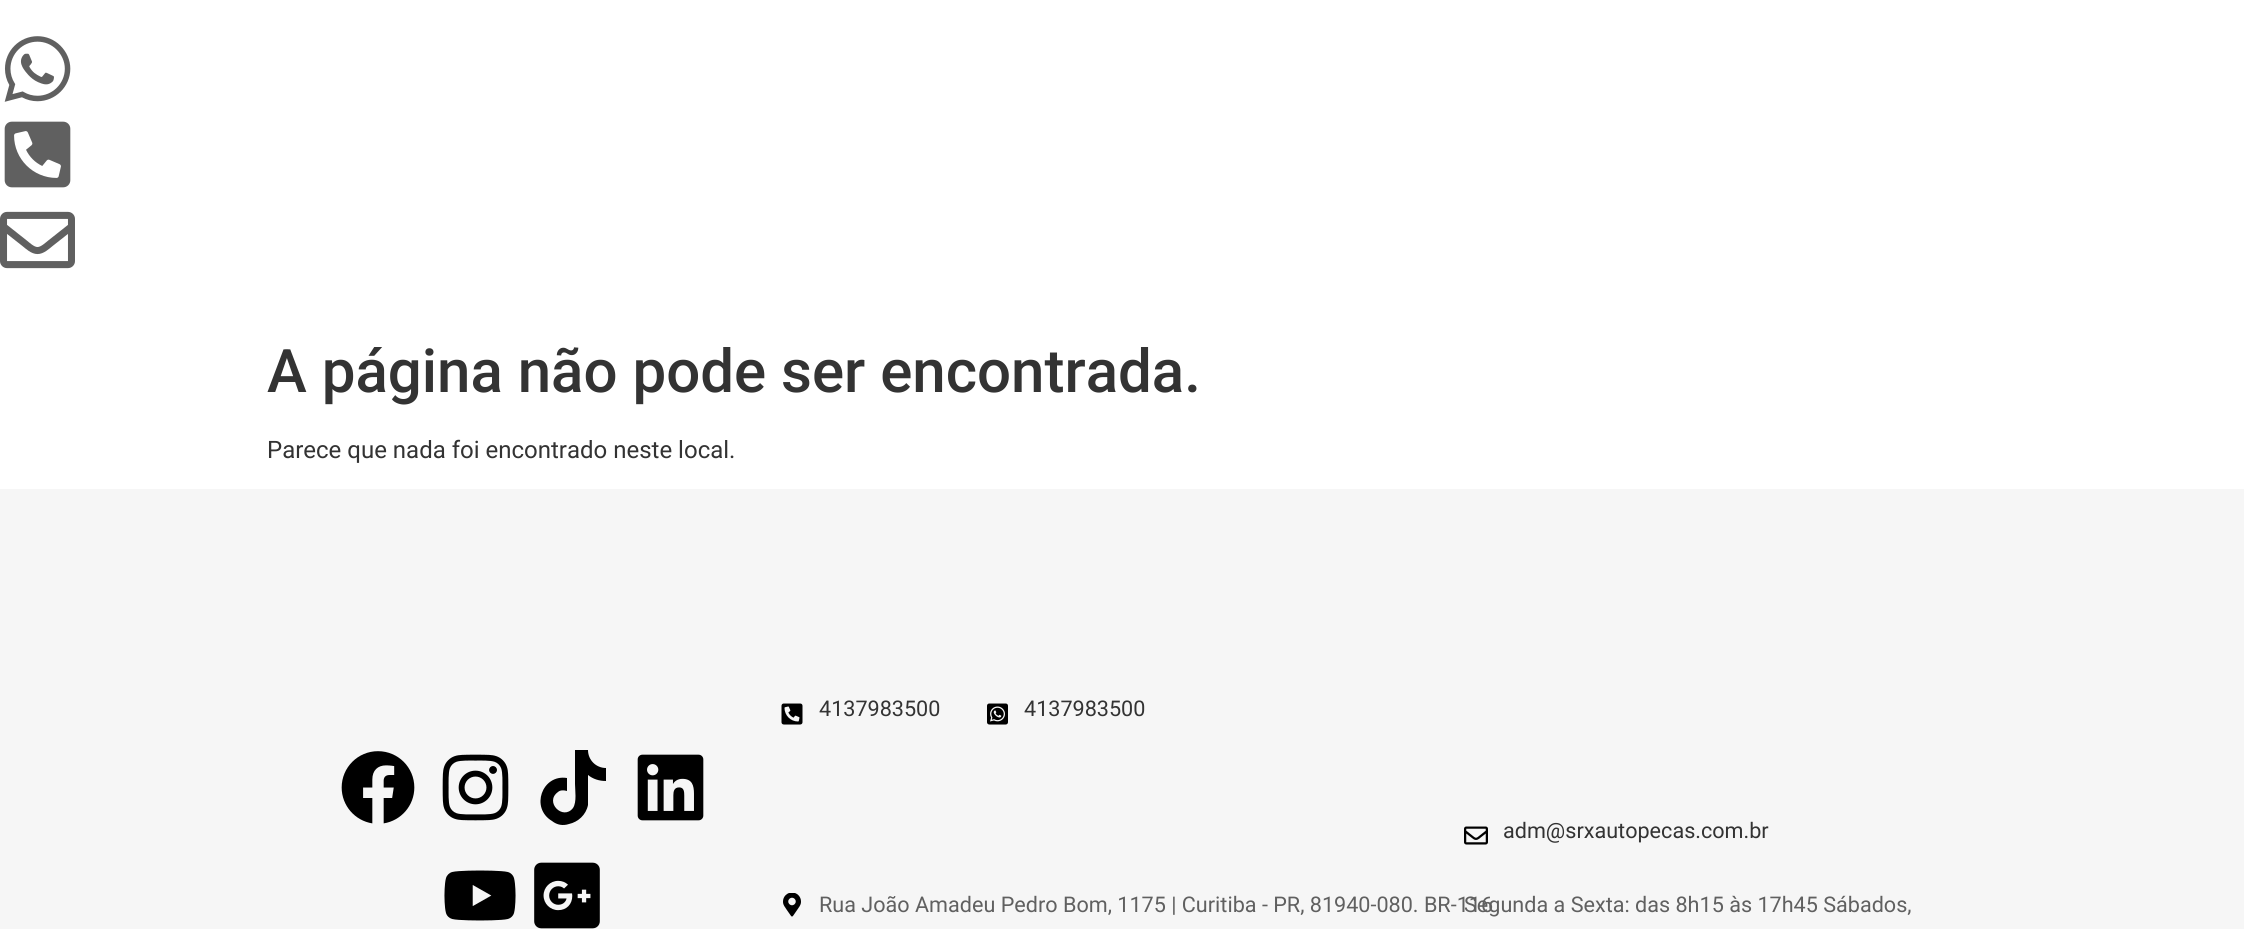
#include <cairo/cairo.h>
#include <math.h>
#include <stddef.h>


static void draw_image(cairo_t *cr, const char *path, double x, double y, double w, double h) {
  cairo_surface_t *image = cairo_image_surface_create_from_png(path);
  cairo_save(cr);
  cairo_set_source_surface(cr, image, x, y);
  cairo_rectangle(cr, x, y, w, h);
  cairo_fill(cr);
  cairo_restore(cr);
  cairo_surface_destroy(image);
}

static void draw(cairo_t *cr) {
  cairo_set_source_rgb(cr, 1, 1, 1);
  cairo_paint(cr);
  draw_image(cr, "images/1.png", 4, 36, 67, 66);
  draw_image(cr, "images/2.png", 4, 121, 67, 67);
  draw_image(cr, "images/3.png", 0, 211, 75, 58);
  cairo_set_source_rgb(cr, 246 / 255.0, 246 / 255.0, 246 / 255.0);
  cairo_rectangle(cr, 0, 489, 2244, 440);
  cairo_fill(cr);
  draw_image(cr, "images/4.png", 341, 751, 74, 73);
  draw_image(cr, "images/5.png", 442, 754, 67, 67);
  cairo_set_source_rgb(cr, 0, 0, 0);
  cairo_new_path(cr);
  cairo_move_to(cr, 606, 781);
  cairo_curve_to(cr, 599, 781, 593, 779, 588, 775);
  cairo_line_to(cr, 588, 805);
  cairo_curve_to(cr, 586, 815, 578, 822, 569, 824);
  cairo_curve_to(cr, 563, 826, 557, 825, 552, 821);
  cairo_curve_to(cr, 530, 808, 542, 774, 567, 778);
  cairo_line_to(cr, 567, 791);
  cairo_curve_to(cr, 564, 790, 560, 790, 558, 792);
  cairo_curve_to(cr, 544, 802, 563, 821, 573, 808);
  cairo_curve_to(cr, 577, 802, 575, 790, 575, 784);
  cairo_line_to(cr, 575, 750);
  cairo_line_to(cr, 588, 750);
  cairo_curve_to(cr, 588, 760, 596, 768, 606, 768);
  cairo_close_path(cr);
  cairo_fill(cr);
  draw_image(cr, "images/6.png", 637, 754, 67, 67);
  draw_image(cr, "images/7.png", 444, 870, 72, 51);
  draw_image(cr, "images/8.png", 534, 862, 66, 67);
  draw_image(cr, "images/9.png", 781, 703, 22, 22);
  draw_image(cr, "images/10.png", 987, 703, 21, 22);
  draw_image(cr, "images/11.png", 783, 893, 18, 24);
  draw_image(cr, "images/12.png", 1464, 826, 24, 19);
  cairo_select_font_face(cr, "Roboto Medium", CAIRO_FONT_SLANT_NORMAL, CAIRO_FONT_WEIGHT_NORMAL);
  cairo_set_font_size(cr, 60);
  cairo_set_source_rgb(cr, 51 / 255.0, 51 / 255.0, 51 / 255.0);
  cairo_move_to(cr, 267, 392);
  cairo_show_text(cr, "A página não pode ser encontrada.");
  cairo_select_font_face(cr, "Roboto", CAIRO_FONT_SLANT_NORMAL, CAIRO_FONT_WEIGHT_NORMAL);
  cairo_set_font_size(cr, 24);
  cairo_move_to(cr, 267, 458);
  cairo_show_text(cr, "Parece que nada foi encontrado neste local.");
  cairo_set_font_size(cr, 21.6);
  cairo_move_to(cr, 819, 716);
  cairo_show_text(cr, "4137983500");
  cairo_move_to(cr, 1024, 716);
  cairo_show_text(cr, "4137983500");
  cairo_set_source_rgb(cr, 96 / 255.0, 96 / 255.0, 96 / 255.0);
  cairo_move_to(cr, 819, 912);
  cairo_show_text(cr, "Rua João Amadeu Pedro Bom, 1175 | Curitiba - PR, 81940-080. BR-116");
  cairo_set_source_rgb(cr, 51 / 255.0, 51 / 255.0, 51 / 255.0);
  cairo_move_to(cr, 1503, 838);
  cairo_show_text(cr, "adm@srxautopecas.com.br");
  cairo_set_source_rgb(cr, 96 / 255.0, 96 / 255.0, 96 / 255.0);
  cairo_move_to(cr, 1464, 912);
  cairo_show_text(cr, "Segunda a Sexta: das 8h15 às 17h45 Sábados,");
}

int main(void) {
  cairo_surface_t *surface = cairo_image_surface_create(CAIRO_FORMAT_RGB24, 2244, 929);
  cairo_t *cr = cairo_create(surface);
  cairo_font_options_t *options = cairo_font_options_create();
  cairo_font_options_set_hint_metrics(options, CAIRO_HINT_METRICS_OFF);
  cairo_font_options_set_hint_style(options, CAIRO_HINT_STYLE_NONE);
  cairo_set_font_options(cr, options);
  cairo_set_miter_limit(cr, 4);
  draw(cr);
  cairo_surface_write_to_png(surface, "out.png");
  cairo_font_options_destroy(options);
  cairo_destroy(cr);
  cairo_surface_destroy(surface);
  return 0;
}
